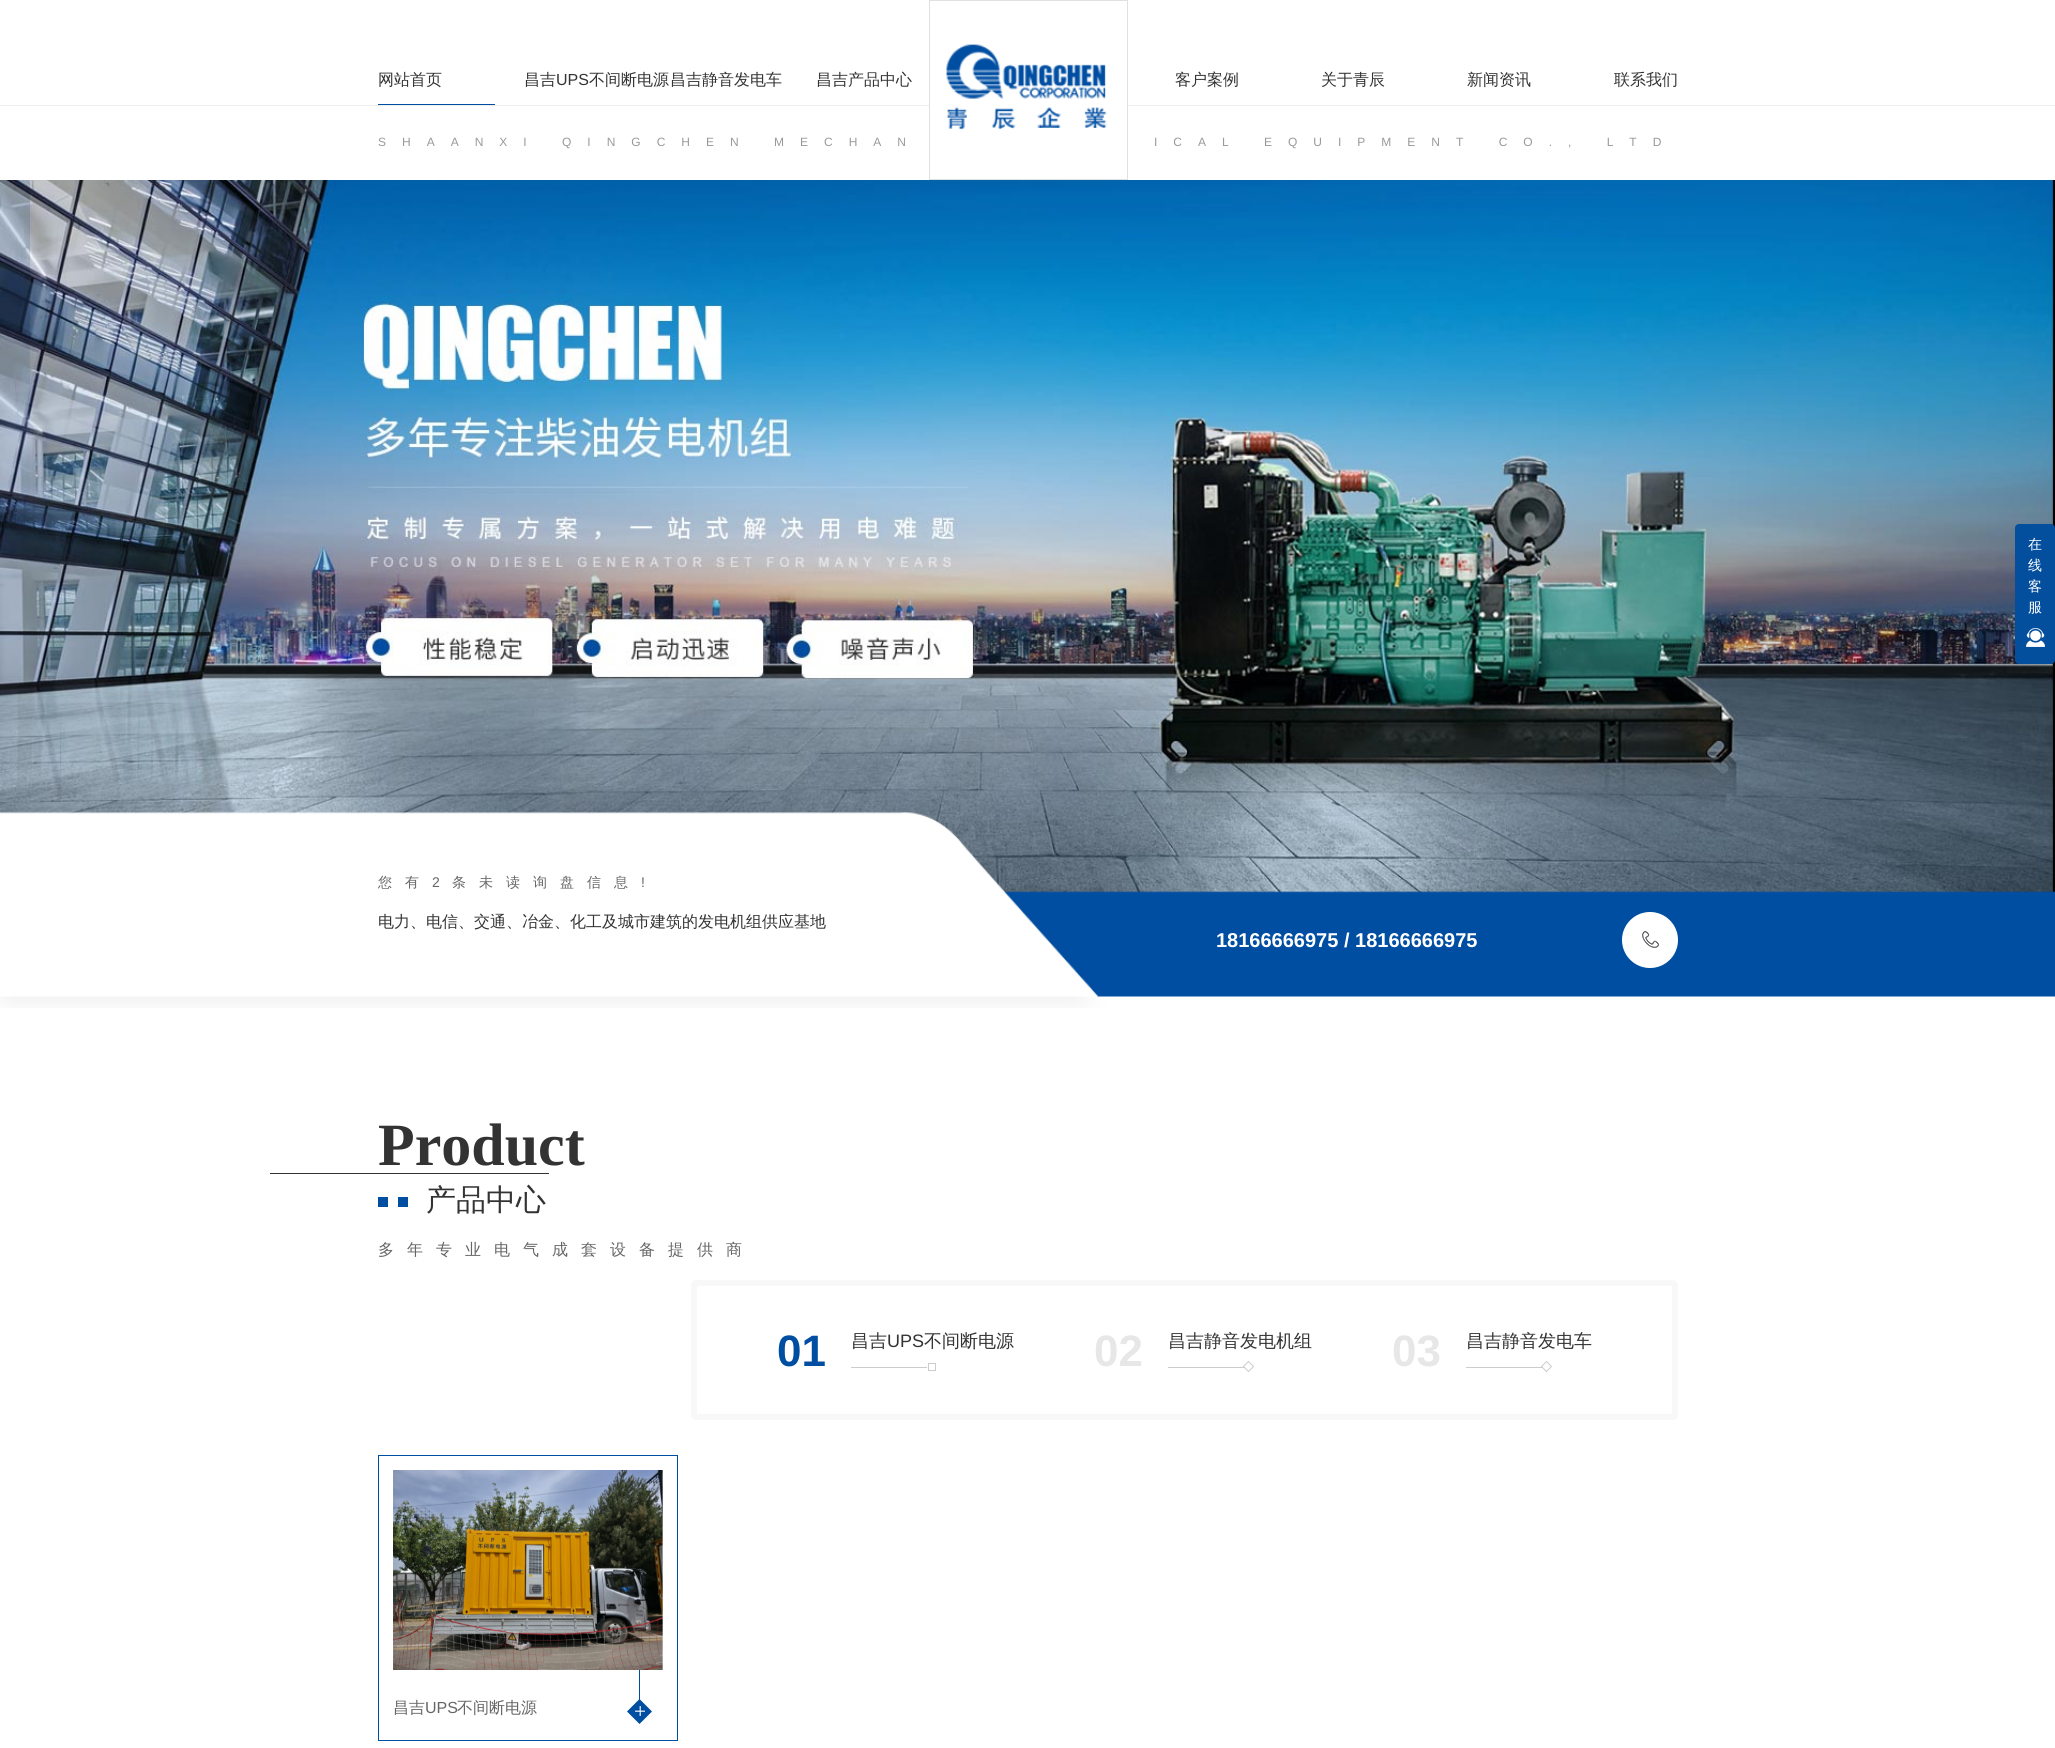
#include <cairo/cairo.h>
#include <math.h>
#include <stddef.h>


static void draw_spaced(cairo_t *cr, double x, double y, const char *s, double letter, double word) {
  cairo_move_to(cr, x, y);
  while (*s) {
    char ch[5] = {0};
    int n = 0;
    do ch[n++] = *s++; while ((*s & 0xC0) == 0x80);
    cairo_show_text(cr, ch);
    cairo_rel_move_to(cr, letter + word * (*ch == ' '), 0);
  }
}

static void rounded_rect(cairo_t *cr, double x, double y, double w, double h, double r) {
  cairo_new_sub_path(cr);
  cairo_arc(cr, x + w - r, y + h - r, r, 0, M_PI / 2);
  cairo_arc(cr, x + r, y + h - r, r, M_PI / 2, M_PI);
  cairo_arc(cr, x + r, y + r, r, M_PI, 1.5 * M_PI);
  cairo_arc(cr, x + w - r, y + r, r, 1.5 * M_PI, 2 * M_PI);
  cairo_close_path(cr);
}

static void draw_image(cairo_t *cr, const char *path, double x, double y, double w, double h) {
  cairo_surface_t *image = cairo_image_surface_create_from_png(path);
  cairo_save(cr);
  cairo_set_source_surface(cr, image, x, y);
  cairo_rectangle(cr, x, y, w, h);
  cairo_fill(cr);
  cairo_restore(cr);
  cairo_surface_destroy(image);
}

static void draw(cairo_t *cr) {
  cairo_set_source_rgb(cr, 1, 1, 1);
  cairo_paint(cr);
  cairo_set_source_rgb(cr, 238 / 255.0, 238 / 255.0, 238 / 255.0);
  cairo_rectangle(cr, 0, 105, 2055, 1);
  cairo_fill(cr);
  cairo_set_source_rgb(cr, 1, 1, 1);
  cairo_rectangle(cr, 930, 105, 197, 1);
  cairo_fill(cr);
  cairo_rectangle(cr, 929.5, 0.5, 198, 179);
  cairo_set_source_rgb(cr, 224 / 255.0, 224 / 255.0, 224 / 255.0);
  cairo_set_line_width(cr, 1);
  cairo_stroke(cr);
  draw_image(cr, "images/1.png", 946, 44, 161, 86);
  cairo_set_source_rgb(cr, 0, 78 / 255.0, 162 / 255.0);
  cairo_rectangle(cr, 378, 104, 117, 1);
  cairo_fill(cr);
  draw_image(cr, "images/3.png", 0, 180, 2055, 713);
  cairo_set_source_rgb(cr, 4 / 255.0, 78 / 255.0, 158 / 255.0);
  rounded_rect(cr, 2015, 524, 40, 140, 4);
  cairo_fill(cr);
  draw_image(cr, "images/2.png", 2026, 628, 19, 19);
  draw_image(cr, "images/4.png", 0, 812, 2055, 196);
  draw_image(cr, "images/5.png", 1622, 912, 56, 56);
  cairo_set_source_rgb(cr, 51 / 255.0, 51 / 255.0, 51 / 255.0);
  cairo_rectangle(cr, 270, 1173, 279, 1);
  cairo_fill(cr);
  cairo_set_source_rgb(cr, 0, 78 / 255.0, 162 / 255.0);
  cairo_rectangle(cr, 378, 1197, 10, 10);
  cairo_fill(cr);
  cairo_rectangle(cr, 398, 1197, 10, 10);
  cairo_fill(cr);
  rounded_rect(cr, 694, 1283, 981, 134, 2);
  cairo_set_source_rgb(cr, 248 / 255.0, 248 / 255.0, 248 / 255.0);
  cairo_set_line_width(cr, 6);
  cairo_stroke(cr);
  cairo_set_source_rgb(cr, 204 / 255.0, 204 / 255.0, 204 / 255.0);
  cairo_rectangle(cr, 851, 1367, 76, 1);
  cairo_fill(cr);
  cairo_rectangle(cr, 928.5, 1363.5, 7, 7);
  cairo_set_line_width(cr, 1);
  cairo_stroke(cr);
  cairo_new_path(cr);
  cairo_move_to(cr, 1248.5, 1361.5);
  cairo_line_to(cr, 1253.5, 1366.5);
  cairo_line_to(cr, 1248.5, 1371.5);
  cairo_line_to(cr, 1243.5, 1366.5);
  cairo_close_path(cr);
  cairo_stroke(cr);
  cairo_rectangle(cr, 1168, 1367, 76, 1);
  cairo_fill(cr);
  cairo_new_path(cr);
  cairo_move_to(cr, 1546.5, 1361.5);
  cairo_line_to(cr, 1551.5, 1366.5);
  cairo_line_to(cr, 1546.5, 1371.5);
  cairo_line_to(cr, 1541.5, 1366.5);
  cairo_close_path(cr);
  cairo_stroke(cr);
  cairo_rectangle(cr, 1466, 1367, 76, 1);
  cairo_fill(cr);
  cairo_rectangle(cr, 378.5, 1455.5, 299, 285);
  cairo_set_source_rgb(cr, 0, 78 / 255.0, 162 / 255.0);
  cairo_stroke(cr);
  draw_image(cr, "images/6.png", 393, 1470, 270, 200);
  draw_image(cr, "images/7.png", 627, 1670, 25, 54);
  cairo_select_font_face(cr, "WenQuanYi Zen Hei Medium", CAIRO_FONT_SLANT_NORMAL, CAIRO_FONT_WEIGHT_NORMAL);
  cairo_set_font_size(cr, 16);
  cairo_set_source_rgb(cr, 51 / 255.0, 51 / 255.0, 51 / 255.0);
  cairo_move_to(cr, 378, 85);
  cairo_show_text(cr, "网站首页");
  cairo_move_to(cr, 524, 85);
  cairo_show_text(cr, "昌吉");
  cairo_select_font_face(cr, "Liberation Sans", CAIRO_FONT_SLANT_NORMAL, CAIRO_FONT_WEIGHT_NORMAL);
  cairo_move_to(cr, 556, 85);
  cairo_show_text(cr, "UPS");
  cairo_select_font_face(cr, "WenQuanYi Zen Hei Medium", CAIRO_FONT_SLANT_NORMAL, CAIRO_FONT_WEIGHT_NORMAL);
  cairo_move_to(cr, 589, 85);
  cairo_show_text(cr, "不间断电源");
  cairo_move_to(cr, 670, 85);
  cairo_show_text(cr, "昌吉静音发电车");
  cairo_move_to(cr, 816, 85);
  cairo_show_text(cr, "昌吉产品中心");
  cairo_move_to(cr, 1175, 85);
  cairo_show_text(cr, "客户案例");
  cairo_move_to(cr, 1321, 85);
  cairo_show_text(cr, "关于青辰");
  cairo_move_to(cr, 1467, 85);
  cairo_show_text(cr, "新闻资讯");
  cairo_move_to(cr, 1614, 85);
  cairo_show_text(cr, "联系我们");
  cairo_select_font_face(cr, "Liberation Sans", CAIRO_FONT_SLANT_NORMAL, CAIRO_FONT_WEIGHT_NORMAL);
  cairo_set_font_size(cr, 12);
  cairo_set_source_rgb(cr, 153 / 255.0, 153 / 255.0, 153 / 255.0);
  draw_spaced(cr, 378, 146, "SHAANXI QINGCHEN MECHAN", 16, 0);
  draw_spaced(cr, 1154, 146, "ICAL EQUIPMENT CO., LTD", 16, 0);
  cairo_select_font_face(cr, "WenQuanYi Zen Hei Medium", CAIRO_FONT_SLANT_NORMAL, CAIRO_FONT_WEIGHT_NORMAL);
  cairo_set_font_size(cr, 14);
  cairo_set_source_rgb(cr, 1, 1, 1);
  cairo_move_to(cr, 2028, 549);
  cairo_show_text(cr, "在");
  cairo_move_to(cr, 2028, 570);
  cairo_show_text(cr, "线");
  cairo_move_to(cr, 2028, 591);
  cairo_show_text(cr, "客");
  cairo_move_to(cr, 2028, 612);
  cairo_show_text(cr, "服");
  cairo_set_source_rgb(cr, 102 / 255.0, 102 / 255.0, 102 / 255.0);
  draw_spaced(cr, 378, 887, "您有", 13, 0);
  cairo_select_font_face(cr, "Liberation Sans", CAIRO_FONT_SLANT_NORMAL, CAIRO_FONT_WEIGHT_NORMAL);
  draw_spaced(cr, 432, 887, "2", 13, 0);
  cairo_select_font_face(cr, "WenQuanYi Zen Hei Medium", CAIRO_FONT_SLANT_NORMAL, CAIRO_FONT_WEIGHT_NORMAL);
  draw_spaced(cr, 452, 887, "条未读询盘信息", 13, 0);
  cairo_select_font_face(cr, "Liberation Sans", CAIRO_FONT_SLANT_NORMAL, CAIRO_FONT_WEIGHT_NORMAL);
  draw_spaced(cr, 641, 887, "!", 13, 0);
  cairo_select_font_face(cr, "WenQuanYi Zen Hei Medium", CAIRO_FONT_SLANT_NORMAL, CAIRO_FONT_WEIGHT_NORMAL);
  cairo_set_font_size(cr, 16);
  cairo_set_source_rgb(cr, 51 / 255.0, 51 / 255.0, 51 / 255.0);
  cairo_move_to(cr, 378, 927);
  cairo_show_text(cr, "电力、电信、交通、冶金、化工及城市建筑的发电机组供应基地");
  cairo_select_font_face(cr, "Liberation Sans", CAIRO_FONT_SLANT_NORMAL, CAIRO_FONT_WEIGHT_BOLD);
  cairo_set_font_size(cr, 20);
  cairo_set_source_rgb(cr, 1, 1, 1);
  cairo_move_to(cr, 1216, 947);
  cairo_show_text(cr, "18166666975 / 18166666975");
  cairo_select_font_face(cr, "Liberation Serif", CAIRO_FONT_SLANT_NORMAL, CAIRO_FONT_WEIGHT_BOLD);
  cairo_set_font_size(cr, 60);
  cairo_set_source_rgb(cr, 51 / 255.0, 51 / 255.0, 51 / 255.0);
  cairo_move_to(cr, 378, 1165);
  cairo_show_text(cr, "Product");
  cairo_select_font_face(cr, "WenQuanYi Zen Hei Medium", CAIRO_FONT_SLANT_NORMAL, CAIRO_FONT_WEIGHT_NORMAL);
  cairo_set_font_size(cr, 30);
  cairo_move_to(cr, 426, 1210);
  cairo_show_text(cr, "产品中心");
  cairo_set_font_size(cr, 16);
  cairo_set_source_rgb(cr, 102 / 255.0, 102 / 255.0, 102 / 255.0);
  draw_spaced(cr, 378, 1255, "多年专业电气成套设备提供商", 13, 0);
  cairo_select_font_face(cr, "Liberation Sans", CAIRO_FONT_SLANT_NORMAL, CAIRO_FONT_WEIGHT_BOLD);
  cairo_set_font_size(cr, 44);
  cairo_set_source_rgb(cr, 0, 78 / 255.0, 162 / 255.0);
  cairo_move_to(cr, 777, 1366);
  cairo_show_text(cr, "01");
  cairo_select_font_face(cr, "WenQuanYi Zen Hei Medium", CAIRO_FONT_SLANT_NORMAL, CAIRO_FONT_WEIGHT_NORMAL);
  cairo_set_font_size(cr, 18);
  cairo_set_source_rgb(cr, 51 / 255.0, 51 / 255.0, 51 / 255.0);
  cairo_move_to(cr, 851, 1347);
  cairo_show_text(cr, "昌吉");
  cairo_select_font_face(cr, "Liberation Sans", CAIRO_FONT_SLANT_NORMAL, CAIRO_FONT_WEIGHT_NORMAL);
  cairo_move_to(cr, 887, 1347);
  cairo_show_text(cr, "UPS");
  cairo_select_font_face(cr, "WenQuanYi Zen Hei Medium", CAIRO_FONT_SLANT_NORMAL, CAIRO_FONT_WEIGHT_NORMAL);
  cairo_move_to(cr, 924, 1347);
  cairo_show_text(cr, "不间断电源");
  cairo_select_font_face(cr, "Liberation Sans", CAIRO_FONT_SLANT_NORMAL, CAIRO_FONT_WEIGHT_BOLD);
  cairo_set_font_size(cr, 44);
  cairo_set_source_rgb(cr, 231 / 255.0, 231 / 255.0, 231 / 255.0);
  cairo_move_to(cr, 1094, 1366);
  cairo_show_text(cr, "02");
  cairo_select_font_face(cr, "WenQuanYi Zen Hei Medium", CAIRO_FONT_SLANT_NORMAL, CAIRO_FONT_WEIGHT_NORMAL);
  cairo_set_font_size(cr, 18);
  cairo_set_source_rgb(cr, 51 / 255.0, 51 / 255.0, 51 / 255.0);
  cairo_move_to(cr, 1168, 1347);
  cairo_show_text(cr, "昌吉静音发电机组");
  cairo_select_font_face(cr, "Liberation Sans", CAIRO_FONT_SLANT_NORMAL, CAIRO_FONT_WEIGHT_BOLD);
  cairo_set_font_size(cr, 44);
  cairo_set_source_rgb(cr, 231 / 255.0, 231 / 255.0, 231 / 255.0);
  cairo_move_to(cr, 1392, 1366);
  cairo_show_text(cr, "03");
  cairo_select_font_face(cr, "WenQuanYi Zen Hei Medium", CAIRO_FONT_SLANT_NORMAL, CAIRO_FONT_WEIGHT_NORMAL);
  cairo_set_font_size(cr, 18);
  cairo_set_source_rgb(cr, 51 / 255.0, 51 / 255.0, 51 / 255.0);
  cairo_move_to(cr, 1466, 1347);
  cairo_show_text(cr, "昌吉静音发电车");
  cairo_set_font_size(cr, 16);
  cairo_set_source_rgb(cr, 102 / 255.0, 102 / 255.0, 102 / 255.0);
  cairo_move_to(cr, 393, 1713);
  cairo_show_text(cr, "昌吉");
  cairo_select_font_face(cr, "Liberation Sans", CAIRO_FONT_SLANT_NORMAL, CAIRO_FONT_WEIGHT_NORMAL);
  cairo_move_to(cr, 425, 1713);
  cairo_show_text(cr, "UPS");
  cairo_select_font_face(cr, "WenQuanYi Zen Hei Medium", CAIRO_FONT_SLANT_NORMAL, CAIRO_FONT_WEIGHT_NORMAL);
  cairo_move_to(cr, 457, 1713);
  cairo_show_text(cr, "不间断电源");
}

int main(void) {
  cairo_surface_t *surface = cairo_image_surface_create(CAIRO_FORMAT_RGB24, 2055, 1748);
  cairo_t *cr = cairo_create(surface);
  cairo_font_options_t *options = cairo_font_options_create();
  cairo_font_options_set_hint_metrics(options, CAIRO_HINT_METRICS_OFF);
  cairo_font_options_set_hint_style(options, CAIRO_HINT_STYLE_NONE);
  cairo_set_font_options(cr, options);
  cairo_set_miter_limit(cr, 4);
  draw(cr);
  cairo_surface_write_to_png(surface, "out.png");
  cairo_font_options_destroy(options);
  cairo_destroy(cr);
  cairo_surface_destroy(surface);
  return 0;
}
